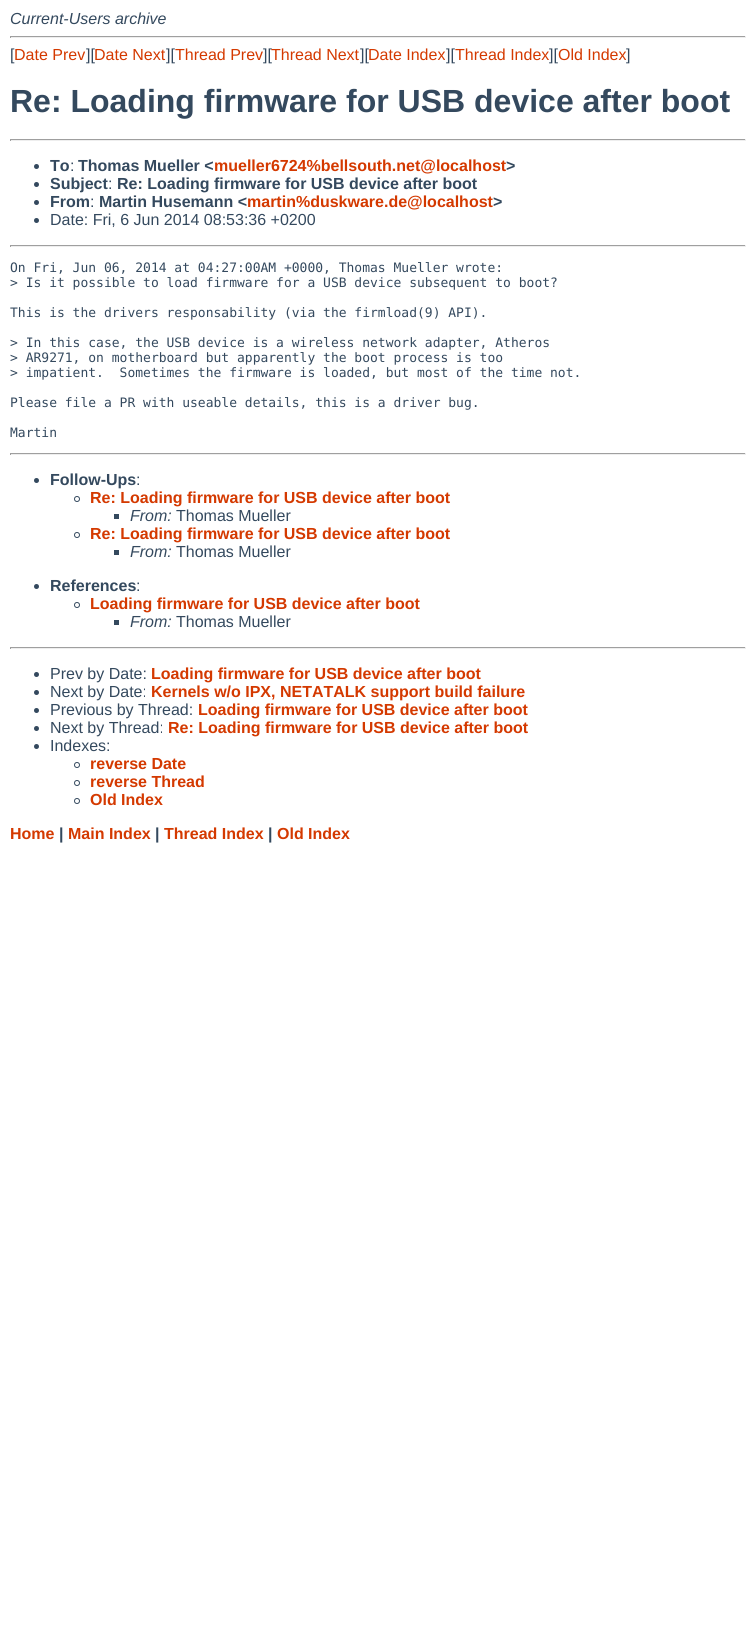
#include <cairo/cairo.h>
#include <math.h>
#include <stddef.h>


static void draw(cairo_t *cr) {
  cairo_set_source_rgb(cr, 1, 1, 1);
  cairo_paint(cr);
  cairo_set_source_rgb(cr, 159 / 255.0, 159 / 255.0, 159 / 255.0);
  cairo_rectangle(cr, 10, 36, 736, 1);
  cairo_fill(cr);
  cairo_set_source_rgb(cr, 238 / 255.0, 238 / 255.0, 238 / 255.0);
  cairo_rectangle(cr, 745, 36, 1, 2);
  cairo_fill(cr);
  cairo_rectangle(cr, 10, 37, 736, 1);
  cairo_fill(cr);
  cairo_set_source_rgb(cr, 159 / 255.0, 159 / 255.0, 159 / 255.0);
  cairo_rectangle(cr, 10, 36, 1, 2);
  cairo_fill(cr);
  cairo_rectangle(cr, 10, 139, 736, 1);
  cairo_fill(cr);
  cairo_set_source_rgb(cr, 238 / 255.0, 238 / 255.0, 238 / 255.0);
  cairo_rectangle(cr, 745, 139, 1, 2);
  cairo_fill(cr);
  cairo_rectangle(cr, 10, 140, 736, 1);
  cairo_fill(cr);
  cairo_set_source_rgb(cr, 159 / 255.0, 159 / 255.0, 159 / 255.0);
  cairo_rectangle(cr, 10, 139, 1, 2);
  cairo_fill(cr);
  cairo_set_source_rgb(cr, 52 / 255.0, 73 / 255.0, 94 / 255.0);
  cairo_arc(cr, 36.5, 166.5, 2.5, 0, 2 * M_PI);
  cairo_fill(cr);
  cairo_arc(cr, 36.5, 184.5, 2.5, 0, 2 * M_PI);
  cairo_fill(cr);
  cairo_arc(cr, 36.5, 202.5, 2.5, 0, 2 * M_PI);
  cairo_fill(cr);
  cairo_arc(cr, 36.5, 220.5, 2.5, 0, 2 * M_PI);
  cairo_fill(cr);
  cairo_set_source_rgb(cr, 159 / 255.0, 159 / 255.0, 159 / 255.0);
  cairo_rectangle(cr, 10, 245, 736, 1);
  cairo_fill(cr);
  cairo_set_source_rgb(cr, 238 / 255.0, 238 / 255.0, 238 / 255.0);
  cairo_rectangle(cr, 745, 245, 1, 2);
  cairo_fill(cr);
  cairo_rectangle(cr, 10, 246, 736, 1);
  cairo_fill(cr);
  cairo_set_source_rgb(cr, 159 / 255.0, 159 / 255.0, 159 / 255.0);
  cairo_rectangle(cr, 10, 245, 1, 2);
  cairo_fill(cr);
  cairo_rectangle(cr, 10, 453, 736, 1);
  cairo_fill(cr);
  cairo_set_source_rgb(cr, 238 / 255.0, 238 / 255.0, 238 / 255.0);
  cairo_rectangle(cr, 745, 453, 1, 2);
  cairo_fill(cr);
  cairo_rectangle(cr, 10, 454, 736, 1);
  cairo_fill(cr);
  cairo_set_source_rgb(cr, 159 / 255.0, 159 / 255.0, 159 / 255.0);
  cairo_rectangle(cr, 10, 453, 1, 2);
  cairo_fill(cr);
  cairo_set_source_rgb(cr, 52 / 255.0, 73 / 255.0, 94 / 255.0);
  cairo_arc(cr, 36.5, 480.5, 2.5, 0, 2 * M_PI);
  cairo_fill(cr);
  cairo_arc(cr, 77, 499, 2.5, 0, 2 * M_PI);
  cairo_set_line_width(cr, 1);
  cairo_stroke(cr);
  cairo_rectangle(cr, 114, 514, 5, 5);
  cairo_fill(cr);
  cairo_arc(cr, 77, 535, 2.5, 0, 2 * M_PI);
  cairo_stroke(cr);
  cairo_rectangle(cr, 114, 550, 5, 5);
  cairo_fill(cr);
  cairo_arc(cr, 36.5, 586.5, 2.5, 0, 2 * M_PI);
  cairo_fill(cr);
  cairo_arc(cr, 77, 605, 2.5, 0, 2 * M_PI);
  cairo_stroke(cr);
  cairo_rectangle(cr, 114, 620, 5, 5);
  cairo_fill(cr);
  cairo_set_source_rgb(cr, 159 / 255.0, 159 / 255.0, 159 / 255.0);
  cairo_rectangle(cr, 10, 647, 736, 1);
  cairo_fill(cr);
  cairo_set_source_rgb(cr, 238 / 255.0, 238 / 255.0, 238 / 255.0);
  cairo_rectangle(cr, 745, 647, 1, 2);
  cairo_fill(cr);
  cairo_rectangle(cr, 10, 648, 736, 1);
  cairo_fill(cr);
  cairo_set_source_rgb(cr, 159 / 255.0, 159 / 255.0, 159 / 255.0);
  cairo_rectangle(cr, 10, 647, 1, 2);
  cairo_fill(cr);
  cairo_set_source_rgb(cr, 52 / 255.0, 73 / 255.0, 94 / 255.0);
  cairo_arc(cr, 36.5, 674.5, 2.5, 0, 2 * M_PI);
  cairo_fill(cr);
  cairo_arc(cr, 36.5, 692.5, 2.5, 0, 2 * M_PI);
  cairo_fill(cr);
  cairo_arc(cr, 36.5, 710.5, 2.5, 0, 2 * M_PI);
  cairo_fill(cr);
  cairo_arc(cr, 36.5, 728.5, 2.5, 0, 2 * M_PI);
  cairo_fill(cr);
  cairo_arc(cr, 36.5, 746.5, 2.5, 0, 2 * M_PI);
  cairo_fill(cr);
  cairo_arc(cr, 77, 765, 2.5, 0, 2 * M_PI);
  cairo_stroke(cr);
  cairo_arc(cr, 77, 783, 2.5, 0, 2 * M_PI);
  cairo_stroke(cr);
  cairo_arc(cr, 77, 801, 2.5, 0, 2 * M_PI);
  cairo_stroke(cr);
  cairo_select_font_face(cr, "Liberation Sans", CAIRO_FONT_SLANT_ITALIC, CAIRO_FONT_WEIGHT_NORMAL);
  cairo_set_font_size(cr, 16);
  cairo_move_to(cr, 10, 24);
  cairo_show_text(cr, "Current-Users archive");
  cairo_select_font_face(cr, "Liberation Sans", CAIRO_FONT_SLANT_NORMAL, CAIRO_FONT_WEIGHT_NORMAL);
  cairo_move_to(cr, 10, 60);
  cairo_show_text(cr, "[");
  cairo_set_source_rgb(cr, 212 / 255.0, 57 / 255.0, 0);
  cairo_move_to(cr, 14, 60);
  cairo_show_text(cr, "Date Prev");
  cairo_set_source_rgb(cr, 52 / 255.0, 73 / 255.0, 94 / 255.0);
  cairo_move_to(cr, 86, 60);
  cairo_show_text(cr, "][");
  cairo_set_source_rgb(cr, 212 / 255.0, 57 / 255.0, 0);
  cairo_move_to(cr, 94, 60);
  cairo_show_text(cr, "Date Next");
  cairo_set_source_rgb(cr, 52 / 255.0, 73 / 255.0, 94 / 255.0);
  cairo_move_to(cr, 166, 60);
  cairo_show_text(cr, "][");
  cairo_set_source_rgb(cr, 212 / 255.0, 57 / 255.0, 0);
  cairo_move_to(cr, 175, 60);
  cairo_show_text(cr, "Thread Prev");
  cairo_set_source_rgb(cr, 52 / 255.0, 73 / 255.0, 94 / 255.0);
  cairo_move_to(cr, 263, 60);
  cairo_show_text(cr, "][");
  cairo_set_source_rgb(cr, 212 / 255.0, 57 / 255.0, 0);
  cairo_move_to(cr, 271, 60);
  cairo_show_text(cr, "Thread Next");
  cairo_set_source_rgb(cr, 52 / 255.0, 73 / 255.0, 94 / 255.0);
  cairo_move_to(cr, 360, 60);
  cairo_show_text(cr, "][");
  cairo_set_source_rgb(cr, 212 / 255.0, 57 / 255.0, 0);
  cairo_move_to(cr, 368, 60);
  cairo_show_text(cr, "Date Index");
  cairo_set_source_rgb(cr, 52 / 255.0, 73 / 255.0, 94 / 255.0);
  cairo_move_to(cr, 446, 60);
  cairo_show_text(cr, "][");
  cairo_set_source_rgb(cr, 212 / 255.0, 57 / 255.0, 0);
  cairo_move_to(cr, 455, 60);
  cairo_show_text(cr, "Thread Index");
  cairo_set_source_rgb(cr, 52 / 255.0, 73 / 255.0, 94 / 255.0);
  cairo_move_to(cr, 549, 60);
  cairo_show_text(cr, "][");
  cairo_set_source_rgb(cr, 212 / 255.0, 57 / 255.0, 0);
  cairo_move_to(cr, 558, 60);
  cairo_show_text(cr, "Old Index");
  cairo_set_source_rgb(cr, 52 / 255.0, 73 / 255.0, 94 / 255.0);
  cairo_move_to(cr, 626, 60);
  cairo_show_text(cr, "]");
  cairo_select_font_face(cr, "Liberation Sans", CAIRO_FONT_SLANT_NORMAL, CAIRO_FONT_WEIGHT_BOLD);
  cairo_set_font_size(cr, 32);
  cairo_move_to(cr, 10, 112);
  cairo_show_text(cr, "Re: Loading firmware for USB device after boot");
  cairo_set_font_size(cr, 16);
  cairo_move_to(cr, 50, 171);
  cairo_show_text(cr, "To");
  cairo_select_font_face(cr, "Liberation Sans", CAIRO_FONT_SLANT_NORMAL, CAIRO_FONT_WEIGHT_NORMAL);
  cairo_move_to(cr, 70, 171);
  cairo_show_text(cr, ":");
  cairo_select_font_face(cr, "Liberation Sans", CAIRO_FONT_SLANT_NORMAL, CAIRO_FONT_WEIGHT_BOLD);
  cairo_move_to(cr, 78, 171);
  cairo_show_text(cr, "Thomas Mueller <");
  cairo_set_source_rgb(cr, 212 / 255.0, 57 / 255.0, 0);
  cairo_move_to(cr, 214, 171);
  cairo_show_text(cr, "mueller6724%bellsouth.net@localhost");
  cairo_set_source_rgb(cr, 52 / 255.0, 73 / 255.0, 94 / 255.0);
  cairo_move_to(cr, 506, 171);
  cairo_show_text(cr, ">");
  cairo_move_to(cr, 50, 189);
  cairo_show_text(cr, "Subject");
  cairo_select_font_face(cr, "Liberation Sans", CAIRO_FONT_SLANT_NORMAL, CAIRO_FONT_WEIGHT_NORMAL);
  cairo_move_to(cr, 108, 189);
  cairo_show_text(cr, ":");
  cairo_select_font_face(cr, "Liberation Sans", CAIRO_FONT_SLANT_NORMAL, CAIRO_FONT_WEIGHT_BOLD);
  cairo_move_to(cr, 117, 189);
  cairo_show_text(cr, "Re: Loading firmware for USB device after boot");
  cairo_move_to(cr, 50, 207);
  cairo_show_text(cr, "From");
  cairo_select_font_face(cr, "Liberation Sans", CAIRO_FONT_SLANT_NORMAL, CAIRO_FONT_WEIGHT_NORMAL);
  cairo_move_to(cr, 90, 207);
  cairo_show_text(cr, ":");
  cairo_select_font_face(cr, "Liberation Sans", CAIRO_FONT_SLANT_NORMAL, CAIRO_FONT_WEIGHT_BOLD);
  cairo_move_to(cr, 99, 207);
  cairo_show_text(cr, "Martin Husemann <");
  cairo_set_source_rgb(cr, 212 / 255.0, 57 / 255.0, 0);
  cairo_move_to(cr, 247, 207);
  cairo_show_text(cr, "martin%duskware.de@localhost");
  cairo_set_source_rgb(cr, 52 / 255.0, 73 / 255.0, 94 / 255.0);
  cairo_move_to(cr, 493, 207);
  cairo_show_text(cr, ">");
  cairo_select_font_face(cr, "Liberation Sans", CAIRO_FONT_SLANT_NORMAL, CAIRO_FONT_WEIGHT_NORMAL);
  cairo_move_to(cr, 50, 225);
  cairo_show_text(cr, "Date: Fri, 6 Jun 2014 08:53:36 +0200");
  cairo_select_font_face(cr, "DejaVu Sans Mono", CAIRO_FONT_SLANT_NORMAL, CAIRO_FONT_WEIGHT_NORMAL);
  cairo_set_font_size(cr, 13);
  cairo_move_to(cr, 10, 272);
  cairo_show_text(cr, "On Fri, Jun 06, 2014 at 04:27:00AM +0000, Thomas Mueller wrote:");
  cairo_move_to(cr, 10, 287);
  cairo_show_text(cr, "> Is it possible to load firmware for a USB device subsequent to boot?");
  cairo_move_to(cr, 10, 317);
  cairo_show_text(cr, "This is the drivers responsability (via the firmload(9) API).");
  cairo_move_to(cr, 10, 347);
  cairo_show_text(cr, "> In this case, the USB device is a wireless network adapter, Atheros");
  cairo_move_to(cr, 10, 362);
  cairo_show_text(cr, "> AR9271, on motherboard but apparently the boot process is too");
  cairo_move_to(cr, 10, 377);
  cairo_show_text(cr, "> impatient.  Sometimes the firmware is loaded, but most of the time not.");
  cairo_move_to(cr, 10, 407);
  cairo_show_text(cr, "Please file a PR with useable details, this is a driver bug.");
  cairo_move_to(cr, 10, 437);
  cairo_show_text(cr, "Martin");
  cairo_select_font_face(cr, "Liberation Sans", CAIRO_FONT_SLANT_NORMAL, CAIRO_FONT_WEIGHT_BOLD);
  cairo_set_font_size(cr, 16);
  cairo_move_to(cr, 50, 485);
  cairo_show_text(cr, "Follow-Ups");
  cairo_select_font_face(cr, "Liberation Sans", CAIRO_FONT_SLANT_NORMAL, CAIRO_FONT_WEIGHT_NORMAL);
  cairo_move_to(cr, 136, 485);
  cairo_show_text(cr, ":");
  cairo_select_font_face(cr, "Liberation Sans", CAIRO_FONT_SLANT_NORMAL, CAIRO_FONT_WEIGHT_BOLD);
  cairo_set_source_rgb(cr, 212 / 255.0, 57 / 255.0, 0);
  cairo_move_to(cr, 90, 503);
  cairo_show_text(cr, "Re: Loading firmware for USB device after boot");
  cairo_select_font_face(cr, "Liberation Sans", CAIRO_FONT_SLANT_ITALIC, CAIRO_FONT_WEIGHT_NORMAL);
  cairo_set_source_rgb(cr, 52 / 255.0, 73 / 255.0, 94 / 255.0);
  cairo_move_to(cr, 130, 521);
  cairo_show_text(cr, "From:");
  cairo_select_font_face(cr, "Liberation Sans", CAIRO_FONT_SLANT_NORMAL, CAIRO_FONT_WEIGHT_NORMAL);
  cairo_move_to(cr, 176, 521);
  cairo_show_text(cr, "Thomas Mueller");
  cairo_select_font_face(cr, "Liberation Sans", CAIRO_FONT_SLANT_NORMAL, CAIRO_FONT_WEIGHT_BOLD);
  cairo_set_source_rgb(cr, 212 / 255.0, 57 / 255.0, 0);
  cairo_move_to(cr, 90, 539);
  cairo_show_text(cr, "Re: Loading firmware for USB device after boot");
  cairo_select_font_face(cr, "Liberation Sans", CAIRO_FONT_SLANT_ITALIC, CAIRO_FONT_WEIGHT_NORMAL);
  cairo_set_source_rgb(cr, 52 / 255.0, 73 / 255.0, 94 / 255.0);
  cairo_move_to(cr, 130, 557);
  cairo_show_text(cr, "From:");
  cairo_select_font_face(cr, "Liberation Sans", CAIRO_FONT_SLANT_NORMAL, CAIRO_FONT_WEIGHT_NORMAL);
  cairo_move_to(cr, 176, 557);
  cairo_show_text(cr, "Thomas Mueller");
  cairo_select_font_face(cr, "Liberation Sans", CAIRO_FONT_SLANT_NORMAL, CAIRO_FONT_WEIGHT_BOLD);
  cairo_move_to(cr, 50, 591);
  cairo_show_text(cr, "References");
  cairo_select_font_face(cr, "Liberation Sans", CAIRO_FONT_SLANT_NORMAL, CAIRO_FONT_WEIGHT_NORMAL);
  cairo_move_to(cr, 136, 591);
  cairo_show_text(cr, ":");
  cairo_select_font_face(cr, "Liberation Sans", CAIRO_FONT_SLANT_NORMAL, CAIRO_FONT_WEIGHT_BOLD);
  cairo_set_source_rgb(cr, 212 / 255.0, 57 / 255.0, 0);
  cairo_move_to(cr, 90, 609);
  cairo_show_text(cr, "Loading firmware for USB device after boot");
  cairo_select_font_face(cr, "Liberation Sans", CAIRO_FONT_SLANT_ITALIC, CAIRO_FONT_WEIGHT_NORMAL);
  cairo_set_source_rgb(cr, 52 / 255.0, 73 / 255.0, 94 / 255.0);
  cairo_move_to(cr, 130, 627);
  cairo_show_text(cr, "From:");
  cairo_select_font_face(cr, "Liberation Sans", CAIRO_FONT_SLANT_NORMAL, CAIRO_FONT_WEIGHT_NORMAL);
  cairo_move_to(cr, 176, 627);
  cairo_show_text(cr, "Thomas Mueller");
  cairo_move_to(cr, 50, 679);
  cairo_show_text(cr, "Prev by Date:");
  cairo_select_font_face(cr, "Liberation Sans", CAIRO_FONT_SLANT_NORMAL, CAIRO_FONT_WEIGHT_BOLD);
  cairo_set_source_rgb(cr, 212 / 255.0, 57 / 255.0, 0);
  cairo_move_to(cr, 151, 679);
  cairo_show_text(cr, "Loading firmware for USB device after boot");
  cairo_select_font_face(cr, "Liberation Sans", CAIRO_FONT_SLANT_NORMAL, CAIRO_FONT_WEIGHT_NORMAL);
  cairo_set_source_rgb(cr, 52 / 255.0, 73 / 255.0, 94 / 255.0);
  cairo_move_to(cr, 50, 697);
  cairo_show_text(cr, "Next by Date:");
  cairo_select_font_face(cr, "Liberation Sans", CAIRO_FONT_SLANT_NORMAL, CAIRO_FONT_WEIGHT_BOLD);
  cairo_set_source_rgb(cr, 212 / 255.0, 57 / 255.0, 0);
  cairo_move_to(cr, 151, 697);
  cairo_show_text(cr, "Kernels w/o IPX, NETATALK support build failure");
  cairo_select_font_face(cr, "Liberation Sans", CAIRO_FONT_SLANT_NORMAL, CAIRO_FONT_WEIGHT_NORMAL);
  cairo_set_source_rgb(cr, 52 / 255.0, 73 / 255.0, 94 / 255.0);
  cairo_move_to(cr, 50, 715);
  cairo_show_text(cr, "Previous by Thread:");
  cairo_select_font_face(cr, "Liberation Sans", CAIRO_FONT_SLANT_NORMAL, CAIRO_FONT_WEIGHT_BOLD);
  cairo_set_source_rgb(cr, 212 / 255.0, 57 / 255.0, 0);
  cairo_move_to(cr, 198, 715);
  cairo_show_text(cr, "Loading firmware for USB device after boot");
  cairo_select_font_face(cr, "Liberation Sans", CAIRO_FONT_SLANT_NORMAL, CAIRO_FONT_WEIGHT_NORMAL);
  cairo_set_source_rgb(cr, 52 / 255.0, 73 / 255.0, 94 / 255.0);
  cairo_move_to(cr, 50, 733);
  cairo_show_text(cr, "Next by Thread:");
  cairo_select_font_face(cr, "Liberation Sans", CAIRO_FONT_SLANT_NORMAL, CAIRO_FONT_WEIGHT_BOLD);
  cairo_set_source_rgb(cr, 212 / 255.0, 57 / 255.0, 0);
  cairo_move_to(cr, 168, 733);
  cairo_show_text(cr, "Re: Loading firmware for USB device after boot");
  cairo_select_font_face(cr, "Liberation Sans", CAIRO_FONT_SLANT_NORMAL, CAIRO_FONT_WEIGHT_NORMAL);
  cairo_set_source_rgb(cr, 52 / 255.0, 73 / 255.0, 94 / 255.0);
  cairo_move_to(cr, 50, 751);
  cairo_show_text(cr, "Indexes:");
  cairo_select_font_face(cr, "Liberation Sans", CAIRO_FONT_SLANT_NORMAL, CAIRO_FONT_WEIGHT_BOLD);
  cairo_set_source_rgb(cr, 212 / 255.0, 57 / 255.0, 0);
  cairo_move_to(cr, 90, 769);
  cairo_show_text(cr, "reverse Date");
  cairo_move_to(cr, 90, 787);
  cairo_show_text(cr, "reverse Thread");
  cairo_move_to(cr, 90, 805);
  cairo_show_text(cr, "Old Index");
  cairo_move_to(cr, 10, 839);
  cairo_show_text(cr, "Home");
  cairo_set_source_rgb(cr, 52 / 255.0, 73 / 255.0, 94 / 255.0);
  cairo_move_to(cr, 59, 839);
  cairo_show_text(cr, "|");
  cairo_set_source_rgb(cr, 212 / 255.0, 57 / 255.0, 0);
  cairo_move_to(cr, 68, 839);
  cairo_show_text(cr, "Main Index");
  cairo_set_source_rgb(cr, 52 / 255.0, 73 / 255.0, 94 / 255.0);
  cairo_move_to(cr, 155, 839);
  cairo_show_text(cr, "|");
  cairo_set_source_rgb(cr, 212 / 255.0, 57 / 255.0, 0);
  cairo_move_to(cr, 164, 839);
  cairo_show_text(cr, "Thread Index");
  cairo_set_source_rgb(cr, 52 / 255.0, 73 / 255.0, 94 / 255.0);
  cairo_move_to(cr, 268, 839);
  cairo_show_text(cr, "|");
  cairo_set_source_rgb(cr, 212 / 255.0, 57 / 255.0, 0);
  cairo_move_to(cr, 277, 839);
  cairo_show_text(cr, "Old Index");
}

int main(void) {
  cairo_surface_t *surface = cairo_image_surface_create(CAIRO_FORMAT_RGB24, 756, 1626);
  cairo_t *cr = cairo_create(surface);
  cairo_font_options_t *options = cairo_font_options_create();
  cairo_font_options_set_hint_metrics(options, CAIRO_HINT_METRICS_OFF);
  cairo_font_options_set_hint_style(options, CAIRO_HINT_STYLE_NONE);
  cairo_set_font_options(cr, options);
  cairo_set_miter_limit(cr, 4);
  draw(cr);
  cairo_surface_write_to_png(surface, "out.png");
  cairo_font_options_destroy(options);
  cairo_destroy(cr);
  cairo_surface_destroy(surface);
  return 0;
}
